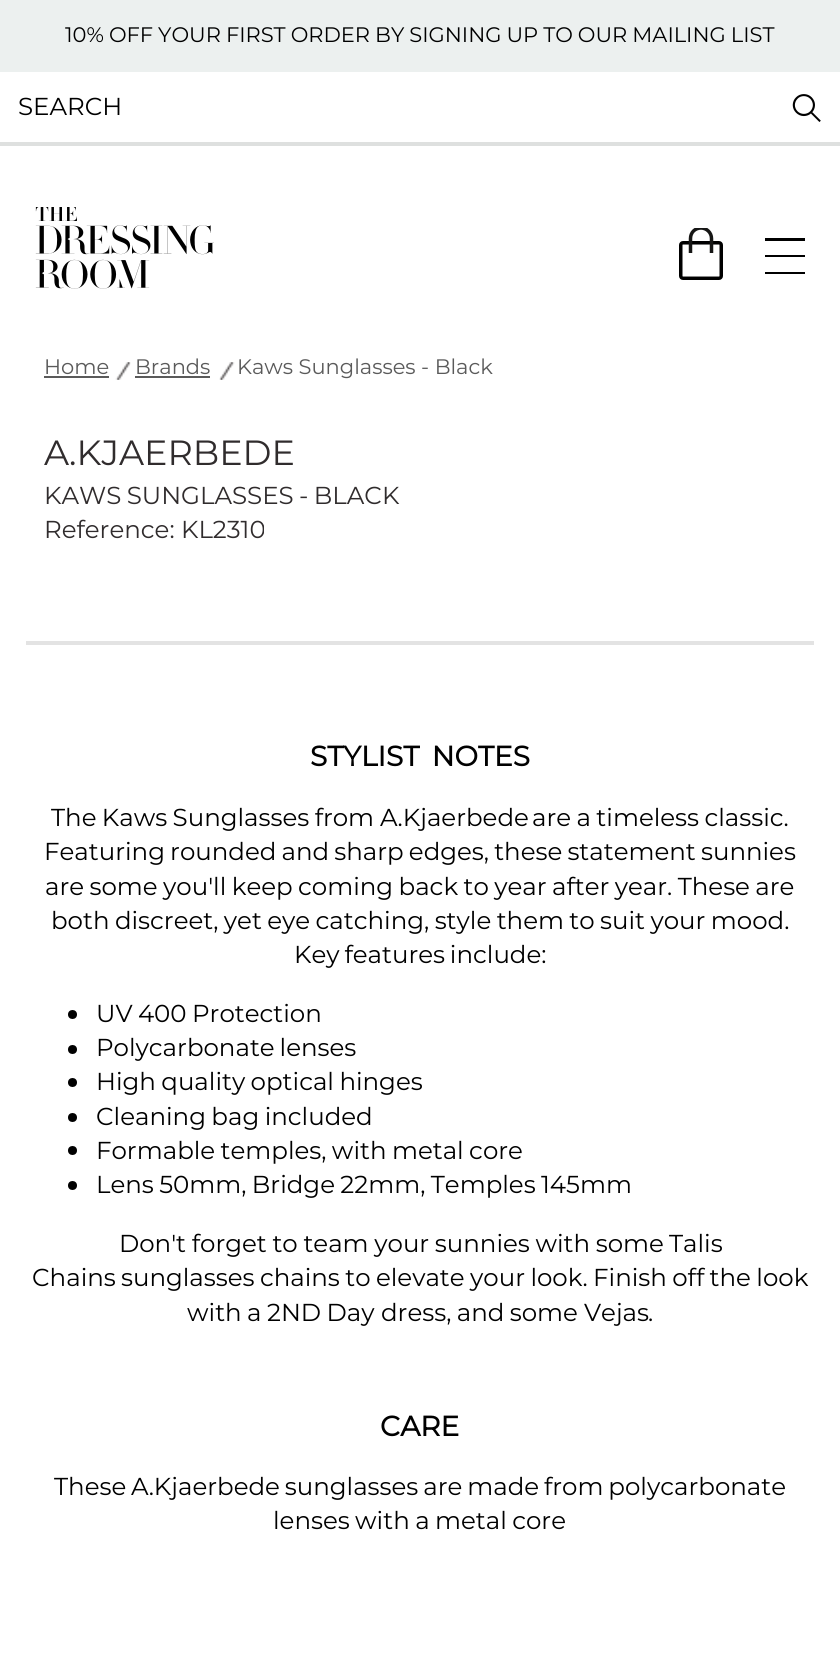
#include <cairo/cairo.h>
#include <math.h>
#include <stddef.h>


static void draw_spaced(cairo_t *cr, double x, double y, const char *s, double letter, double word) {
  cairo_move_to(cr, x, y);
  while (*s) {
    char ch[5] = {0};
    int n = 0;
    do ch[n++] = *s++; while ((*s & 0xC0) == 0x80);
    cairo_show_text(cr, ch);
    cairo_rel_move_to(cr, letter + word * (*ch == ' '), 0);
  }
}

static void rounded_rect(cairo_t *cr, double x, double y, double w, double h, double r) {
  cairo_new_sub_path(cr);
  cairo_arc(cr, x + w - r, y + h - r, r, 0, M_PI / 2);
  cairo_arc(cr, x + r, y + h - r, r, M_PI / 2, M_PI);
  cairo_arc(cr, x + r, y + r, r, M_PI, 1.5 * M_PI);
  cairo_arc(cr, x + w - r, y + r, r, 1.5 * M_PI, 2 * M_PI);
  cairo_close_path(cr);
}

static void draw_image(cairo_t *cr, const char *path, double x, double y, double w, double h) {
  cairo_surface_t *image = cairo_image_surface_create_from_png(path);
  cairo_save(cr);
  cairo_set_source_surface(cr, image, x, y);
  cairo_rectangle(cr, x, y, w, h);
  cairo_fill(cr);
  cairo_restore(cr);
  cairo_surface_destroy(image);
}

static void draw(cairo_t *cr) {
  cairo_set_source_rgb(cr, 1, 1, 1);
  cairo_paint(cr);
  cairo_set_source_rgb(cr, 236 / 255.0, 240 / 255.0, 239 / 255.0);
  cairo_rectangle(cr, 0, 0, 840, 72);
  cairo_fill(cr);
  cairo_set_source_rgb(cr, 222 / 255.0, 224 / 255.0, 223 / 255.0);
  cairo_rectangle(cr, 0, 142, 840, 4);
  cairo_fill(cr);
  draw_image(cr, "images/1.png", 792, 94, 29, 28);
  draw_image(cr, "images/2.png", 35, 207, 179, 82);
  rounded_rect(cr, 680.75, 242.75, 40.5, 35.5, 2.25);
  cairo_set_source_rgb(cr, 0, 0, 0);
  cairo_set_line_width(cr, 3.5);
  cairo_stroke(cr);
  cairo_save(cr);
  cairo_rectangle(cr, 679, 228, 44, 52);
  cairo_clip(cr);
  cairo_new_path(cr);
  cairo_move_to(cr, 690.5, 253);
  cairo_line_to(cr, 690.5, 238.5);
  cairo_curve_to(cr, 690.5, 232.5, 695, 228, 701, 228);
  cairo_curve_to(cr, 706.5, 228, 711.5, 232.5, 711.5, 238.5);
  cairo_line_to(cr, 711.5, 253);
  cairo_set_source_rgb(cr, 22 / 255.0, 22 / 255.0, 21 / 255.0);
  cairo_stroke(cr);
  cairo_restore(cr);
  cairo_new_path(cr);
  cairo_move_to(cr, 765, 272);
  cairo_line_to(cr, 805, 272);
  cairo_line_to(cr, 805, 274);
  cairo_line_to(cr, 765, 274);
  cairo_close_path(cr);
  cairo_move_to(cr, 765, 238);
  cairo_line_to(cr, 805, 238);
  cairo_line_to(cr, 805, 241);
  cairo_line_to(cr, 765, 241);
  cairo_close_path(cr);
  cairo_move_to(cr, 765, 255);
  cairo_line_to(cr, 805, 255);
  cairo_line_to(cr, 805, 257);
  cairo_line_to(cr, 765, 257);
  cairo_close_path(cr);
  cairo_fill(cr);
  cairo_set_source_rgb(cr, 90 / 255.0, 90 / 255.0, 90 / 255.0);
  cairo_rectangle(cr, 44, 376, 65, 2);
  cairo_fill(cr);
  draw_image(cr, "images/3.png", 115, 362, 16, 18);
  cairo_rectangle(cr, 135, 376, 75, 2);
  cairo_fill(cr);
  draw_image(cr, "images/4.png", 219, 362, 16, 18);
  cairo_set_source_rgb(cr, 227 / 255.0, 227 / 255.0, 227 / 255.0);
  cairo_rectangle(cr, 26, 641, 788, 4);
  cairo_fill(cr);
  cairo_set_source_rgb(cr, 0, 0, 0);
  cairo_arc(cr, 72.5, 1014.5, 4.5, 0, 2 * M_PI);
  cairo_fill(cr);
  cairo_arc(cr, 72.5, 1049.5, 4.5, 0, 2 * M_PI);
  cairo_fill(cr);
  cairo_arc(cr, 72.5, 1082.5, 4.5, 0, 2 * M_PI);
  cairo_fill(cr);
  cairo_arc(cr, 72.5, 1117.5, 4.5, 0, 2 * M_PI);
  cairo_fill(cr);
  cairo_arc(cr, 72.5, 1150.5, 4.5, 0, 2 * M_PI);
  cairo_fill(cr);
  cairo_arc(cr, 72.5, 1185.5, 4.5, 0, 2 * M_PI);
  cairo_fill(cr);
  cairo_select_font_face(cr, "Montserrat", CAIRO_FONT_SLANT_NORMAL, CAIRO_FONT_WEIGHT_NORMAL);
  cairo_set_font_size(cr, 21);
  draw_spaced(cr, 65, 42, "10% OFF YOUR FIRST ORDER BY SIGNING UP TO OUR MAILING LIST", 0, -0.5);
  cairo_set_font_size(cr, 24.5);
  cairo_move_to(cr, 18, 115);
  cairo_show_text(cr, "SEARCH");
  cairo_set_font_size(cr, 21);
  cairo_set_source_rgb(cr, 90 / 255.0, 90 / 255.0, 90 / 255.0);
  cairo_move_to(cr, 44, 374);
  cairo_show_text(cr, "Home");
  cairo_move_to(cr, 135, 374);
  cairo_show_text(cr, "Brands");
  cairo_move_to(cr, 237, 374);
  cairo_show_text(cr, "Kaws Sunglasses - Black");
  cairo_set_font_size(cr, 35);
  cairo_set_source_rgb(cr, 48 / 255.0, 44 / 255.0, 45 / 255.0);
  cairo_move_to(cr, 44, 465);
  cairo_show_text(cr, "A.KJAERBEDE");
  cairo_set_font_size(cr, 24.5);
  draw_spaced(cr, 44, 504, "KAWS SUNGLASSES - BLACK", 0, -1);
  cairo_move_to(cr, 44, 538);
  cairo_show_text(cr, "Reference: KL2310");
  cairo_select_font_face(cr, "Montserrat", CAIRO_FONT_SLANT_NORMAL, CAIRO_FONT_WEIGHT_BOLD);
  cairo_set_font_size(cr, 28);
  cairo_set_source_rgb(cr, 0, 0, 0);
  draw_spaced(cr, 310, 766, "STYLIST NOTES", 0, 5);
  cairo_select_font_face(cr, "Montserrat", CAIRO_FONT_SLANT_NORMAL, CAIRO_FONT_WEIGHT_NORMAL);
  cairo_set_font_size(cr, 24.5);
  draw_spaced(cr, 51, 826, "The Kaws Sunglasses from", 0, -1);
  cairo_move_to(cr, 380, 826);
  cairo_show_text(cr, "A.Kjaerbede");
  draw_spaced(cr, 532, 826, "are a timeless classic.", 0, -1);
  draw_spaced(cr, 44, 860, "Featuring rounded and sharp edges, these statement sunnies", 0, -1.25);
  draw_spaced(cr, 45, 895, "are some you'll keep coming back to year after year. These are", 0, -1);
  draw_spaced(cr, 51, 929, "both discreet, yet eye catching, style them to suit your mood.", 0, -1);
  draw_spaced(cr, 294, 963, "Key features include:", 0, -1.5);
  draw_spaced(cr, 96, 1022, "UV 400 Protection", 0, -1);
  draw_spaced(cr, 96, 1056, "Polycarbonate lenses", 0, -1.5);
  draw_spaced(cr, 96, 1090, "High quality optical hinges", 0, -1);
  draw_spaced(cr, 96, 1125, "Cleaning bag included", 0, -1);
  draw_spaced(cr, 96, 1159, "Formable temples, with metal core", 0, -1);
  draw_spaced(cr, 96, 1193, "Lens 50mm, Bridge 22mm, Temples 145mm", 0, -1);
  draw_spaced(cr, 119, 1252, "Don't forget to team your sunnies with some", 0, -0.75);
  cairo_move_to(cr, 669, 1252);
  cairo_show_text(cr, "Talis");
  cairo_move_to(cr, 32, 1286);
  cairo_show_text(cr, "Chains");
  draw_spaced(cr, 121, 1286, "sunglasses chains to elevate your look. Finish off the look", 0, -1);
  draw_spaced(cr, 187, 1321, "with a", 0, -1);
  draw_spaced(cr, 267, 1321, "2ND Day", 0, -1);
  draw_spaced(cr, 381, 1321, "dress, and some", 0, -1);
  cairo_move_to(cr, 584, 1321);
  cairo_show_text(cr, "Vejas");
  cairo_move_to(cr, 648, 1321);
  cairo_show_text(cr, ".");
  cairo_select_font_face(cr, "Montserrat", CAIRO_FONT_SLANT_NORMAL, CAIRO_FONT_WEIGHT_BOLD);
  cairo_set_font_size(cr, 28);
  cairo_move_to(cr, 380, 1436);
  cairo_show_text(cr, "CARE");
  cairo_select_font_face(cr, "Montserrat", CAIRO_FONT_SLANT_NORMAL, CAIRO_FONT_WEIGHT_NORMAL);
  cairo_set_font_size(cr, 24.5);
  draw_spaced(cr, 54, 1495, "These A.Kjaerbede sunglasses are made from polycarbonate", 0, -1.5);
  draw_spaced(cr, 273, 1529, "lenses with a metal core", 0, -1);
}

int main(void) {
  cairo_surface_t *surface = cairo_image_surface_create(CAIRO_FORMAT_RGB24, 840, 1670);
  cairo_t *cr = cairo_create(surface);
  cairo_font_options_t *options = cairo_font_options_create();
  cairo_font_options_set_hint_metrics(options, CAIRO_HINT_METRICS_OFF);
  cairo_font_options_set_hint_style(options, CAIRO_HINT_STYLE_NONE);
  cairo_set_font_options(cr, options);
  cairo_set_miter_limit(cr, 4);
  draw(cr);
  cairo_surface_write_to_png(surface, "out.png");
  cairo_font_options_destroy(options);
  cairo_destroy(cr);
  cairo_surface_destroy(surface);
  return 0;
}
